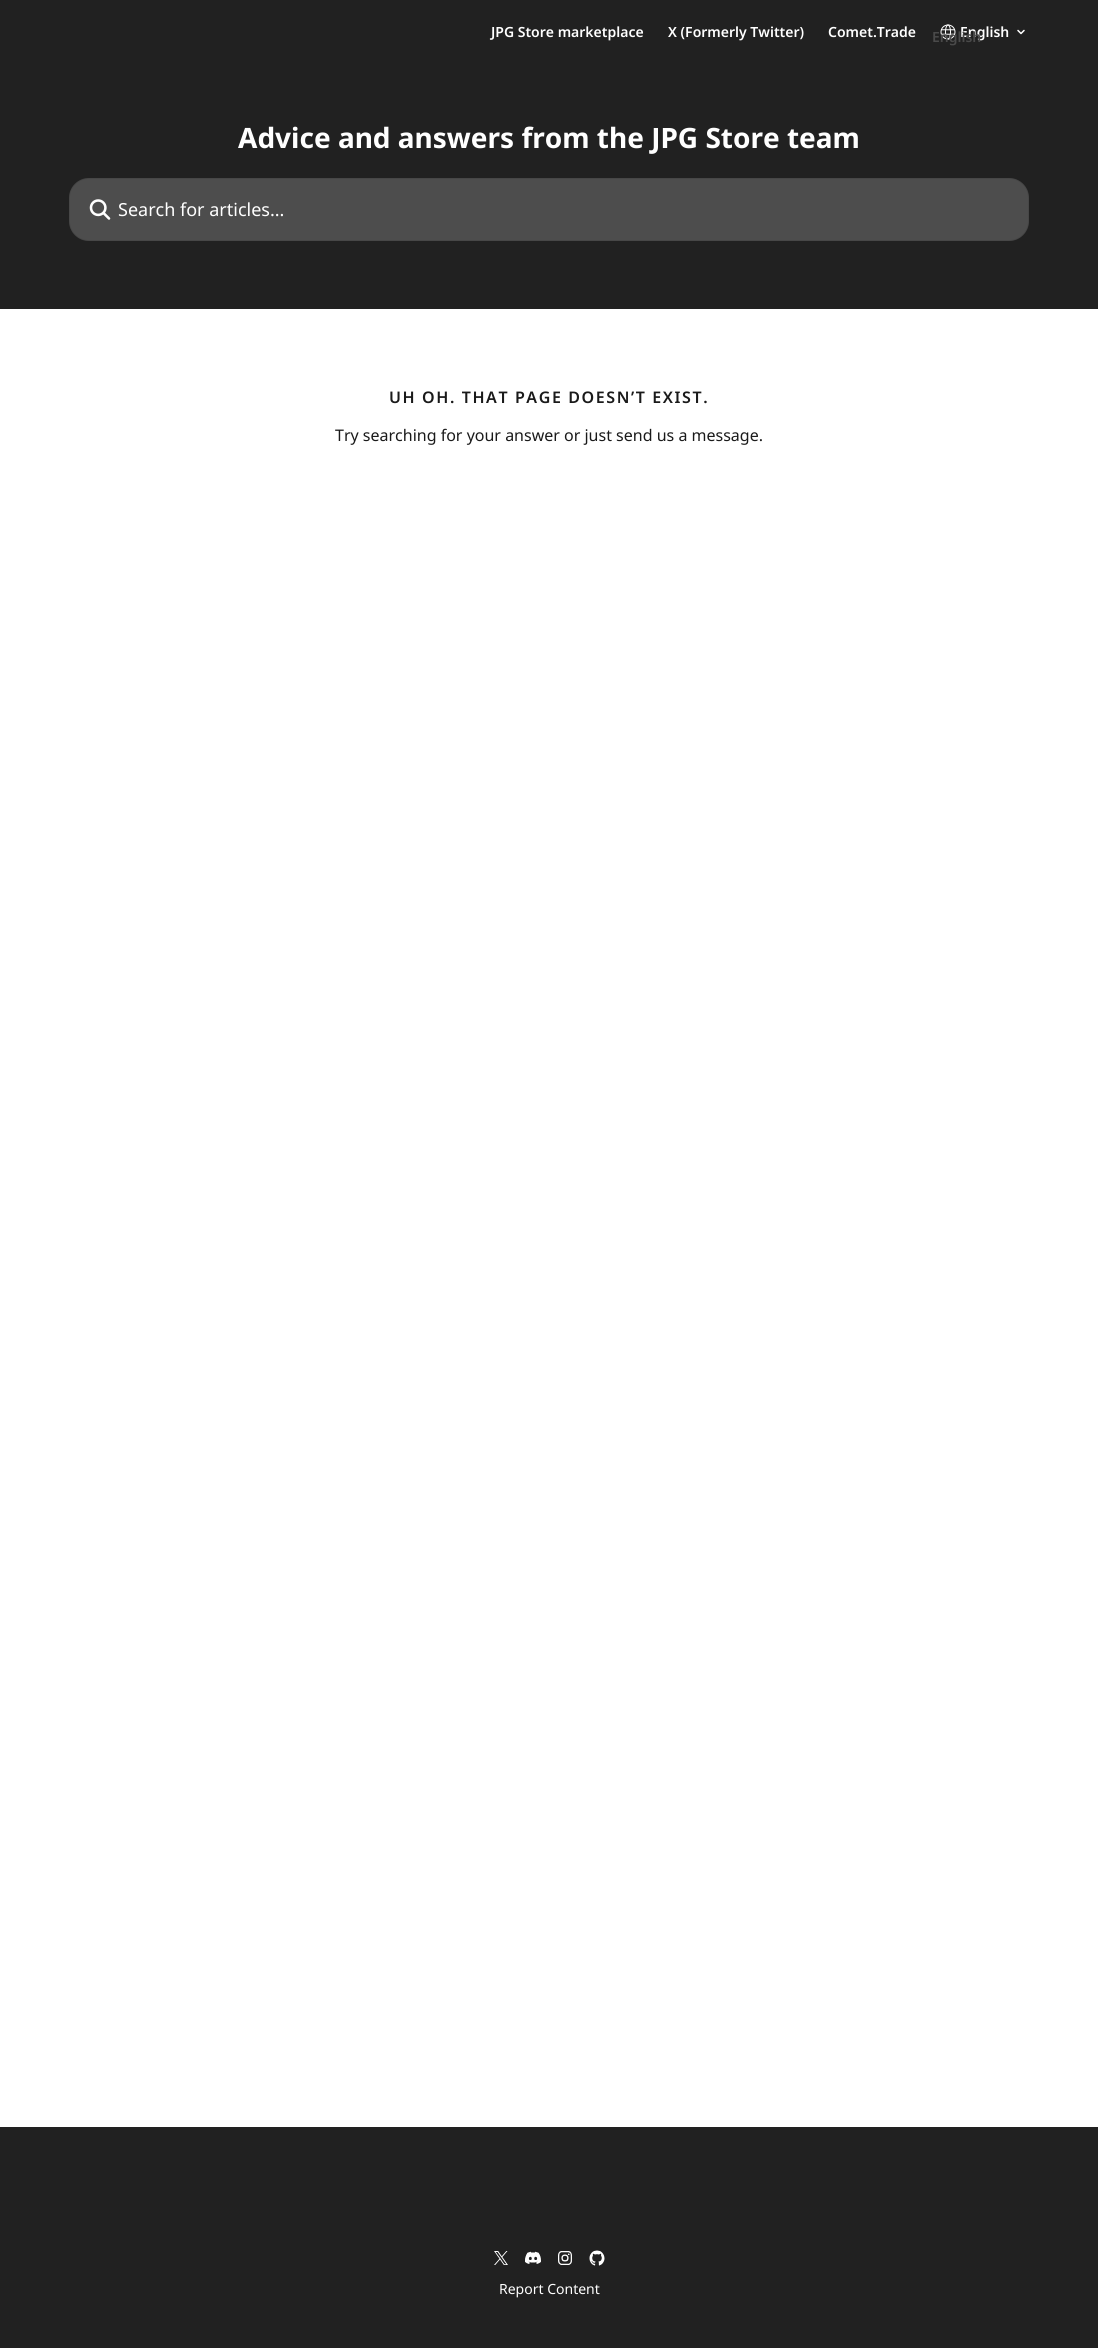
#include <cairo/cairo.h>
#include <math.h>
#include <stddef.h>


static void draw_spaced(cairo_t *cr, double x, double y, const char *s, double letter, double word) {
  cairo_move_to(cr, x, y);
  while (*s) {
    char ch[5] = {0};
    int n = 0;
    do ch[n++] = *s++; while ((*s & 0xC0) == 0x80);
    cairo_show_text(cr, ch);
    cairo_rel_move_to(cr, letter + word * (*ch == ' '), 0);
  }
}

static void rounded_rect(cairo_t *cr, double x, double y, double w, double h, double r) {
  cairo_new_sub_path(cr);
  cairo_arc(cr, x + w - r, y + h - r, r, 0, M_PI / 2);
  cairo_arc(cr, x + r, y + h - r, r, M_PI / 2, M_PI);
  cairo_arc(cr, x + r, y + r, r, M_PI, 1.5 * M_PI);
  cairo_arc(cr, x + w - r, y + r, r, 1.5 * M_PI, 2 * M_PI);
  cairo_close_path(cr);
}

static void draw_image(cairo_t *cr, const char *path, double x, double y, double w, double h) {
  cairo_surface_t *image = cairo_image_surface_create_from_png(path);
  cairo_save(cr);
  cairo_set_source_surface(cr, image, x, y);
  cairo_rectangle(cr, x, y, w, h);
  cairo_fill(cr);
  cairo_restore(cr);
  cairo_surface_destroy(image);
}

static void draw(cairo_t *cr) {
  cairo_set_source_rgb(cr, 1, 1, 1);
  cairo_paint(cr);
  cairo_set_source_rgb(cr, 33 / 255.0, 33 / 255.0, 33 / 255.0);
  cairo_rectangle(cr, 0, 0, 1098, 309);
  cairo_fill(cr);
  draw_image(cr, "images/1.png", 940, 24, 16, 16);
  cairo_new_path(cr);
  cairo_move_to(cr, 1018, 30.5);
  cairo_line_to(cr, 1021, 33.5);
  cairo_line_to(cr, 1024, 30.5);
  cairo_set_source_rgb(cr, 1, 1, 1);
  cairo_set_line_width(cr, 1.5);
  cairo_set_line_cap(cr, CAIRO_LINE_CAP_ROUND);
  cairo_set_line_join(cr, CAIRO_LINE_JOIN_ROUND);
  cairo_stroke(cr);
  cairo_set_source_rgb(cr, 77 / 255.0, 77 / 255.0, 77 / 255.0);
  rounded_rect(cr, 69, 178, 960, 63, 20);
  cairo_fill(cr);
  rounded_rect(cr, 69.5, 178.5, 959, 62, 19.5);
  cairo_set_source_rgba(cr, 0, 0, 0, 0.08);
  cairo_set_line_width(cr, 1);
  cairo_set_line_cap(cr, CAIRO_LINE_CAP_BUTT);
  cairo_set_line_join(cr, CAIRO_LINE_JOIN_MITER);
  cairo_stroke(cr);
  draw_image(cr, "images/2.png", 89, 199, 22, 21);
  cairo_set_source_rgb(cr, 33 / 255.0, 33 / 255.0, 33 / 255.0);
  cairo_rectangle(cr, 0, 2127, 1098, 221);
  cairo_fill(cr);
  draw_image(cr, "images/3.png", 494, 2251, 14, 14);
  draw_image(cr, "images/4.png", 525, 2251, 16, 13);
  draw_image(cr, "images/5.png", 558, 2251, 14, 14);
  draw_image(cr, "images/6.png", 589, 2250, 16, 16);
  cairo_select_font_face(cr, "Noto Sans SemiBold", CAIRO_FONT_SLANT_NORMAL, CAIRO_FONT_WEIGHT_NORMAL);
  cairo_set_font_size(cr, 14);
  cairo_set_source_rgb(cr, 1, 1, 1);
  cairo_move_to(cr, 491, 37);
  cairo_show_text(cr, "JPG Store marketplace");
  cairo_move_to(cr, 668, 37);
  cairo_show_text(cr, "X (Formerly Twitter)");
  cairo_move_to(cr, 828, 37);
  cairo_show_text(cr, "Comet.Trade");
  cairo_move_to(cr, 960, 37);
  cairo_show_text(cr, "English");
  cairo_set_source_rgb(cr, 74 / 255.0, 74 / 255.0, 74 / 255.0);
  cairo_move_to(cr, 932, 42);
  cairo_show_text(cr, "English");
  cairo_select_font_face(cr, "Noto Sans", CAIRO_FONT_SLANT_NORMAL, CAIRO_FONT_WEIGHT_BOLD);
  cairo_set_font_size(cr, 28);
  cairo_set_source_rgb(cr, 1, 1, 1);
  cairo_move_to(cr, 238, 148);
  cairo_show_text(cr, "Advice and answers from the JPG Store team");
  cairo_select_font_face(cr, "Noto Sans", CAIRO_FONT_SLANT_NORMAL, CAIRO_FONT_WEIGHT_NORMAL);
  cairo_set_font_size(cr, 18);
  cairo_move_to(cr, 118, 216);
  cairo_show_text(cr, "Search for articles...");
  cairo_select_font_face(cr, "Noto Sans SemiBold", CAIRO_FONT_SLANT_NORMAL, CAIRO_FONT_WEIGHT_NORMAL);
  cairo_set_font_size(cr, 16);
  cairo_set_source_rgb(cr, 26 / 255.0, 26 / 255.0, 26 / 255.0);
  draw_spaced(cr, 389, 403, "UH OH. THAT PAGE DOESN’T EXIST.", 1.6, 0);
  cairo_select_font_face(cr, "Noto Sans", CAIRO_FONT_SLANT_NORMAL, CAIRO_FONT_WEIGHT_NORMAL);
  cairo_move_to(cr, 335, 441);
  cairo_show_text(cr, "Try searching for your answer or just send us a message.");
  cairo_set_font_size(cr, 14);
  cairo_set_source_rgb(cr, 1, 1, 1);
  cairo_move_to(cr, 499, 2294);
  cairo_show_text(cr, "Report Content");
}

int main(void) {
  cairo_surface_t *surface = cairo_image_surface_create(CAIRO_FORMAT_RGB24, 1098, 2348);
  cairo_t *cr = cairo_create(surface);
  cairo_font_options_t *options = cairo_font_options_create();
  cairo_font_options_set_hint_metrics(options, CAIRO_HINT_METRICS_OFF);
  cairo_font_options_set_hint_style(options, CAIRO_HINT_STYLE_NONE);
  cairo_set_font_options(cr, options);
  cairo_set_miter_limit(cr, 4);
  draw(cr);
  cairo_surface_write_to_png(surface, "out.png");
  cairo_font_options_destroy(options);
  cairo_destroy(cr);
  cairo_surface_destroy(surface);
  return 0;
}
